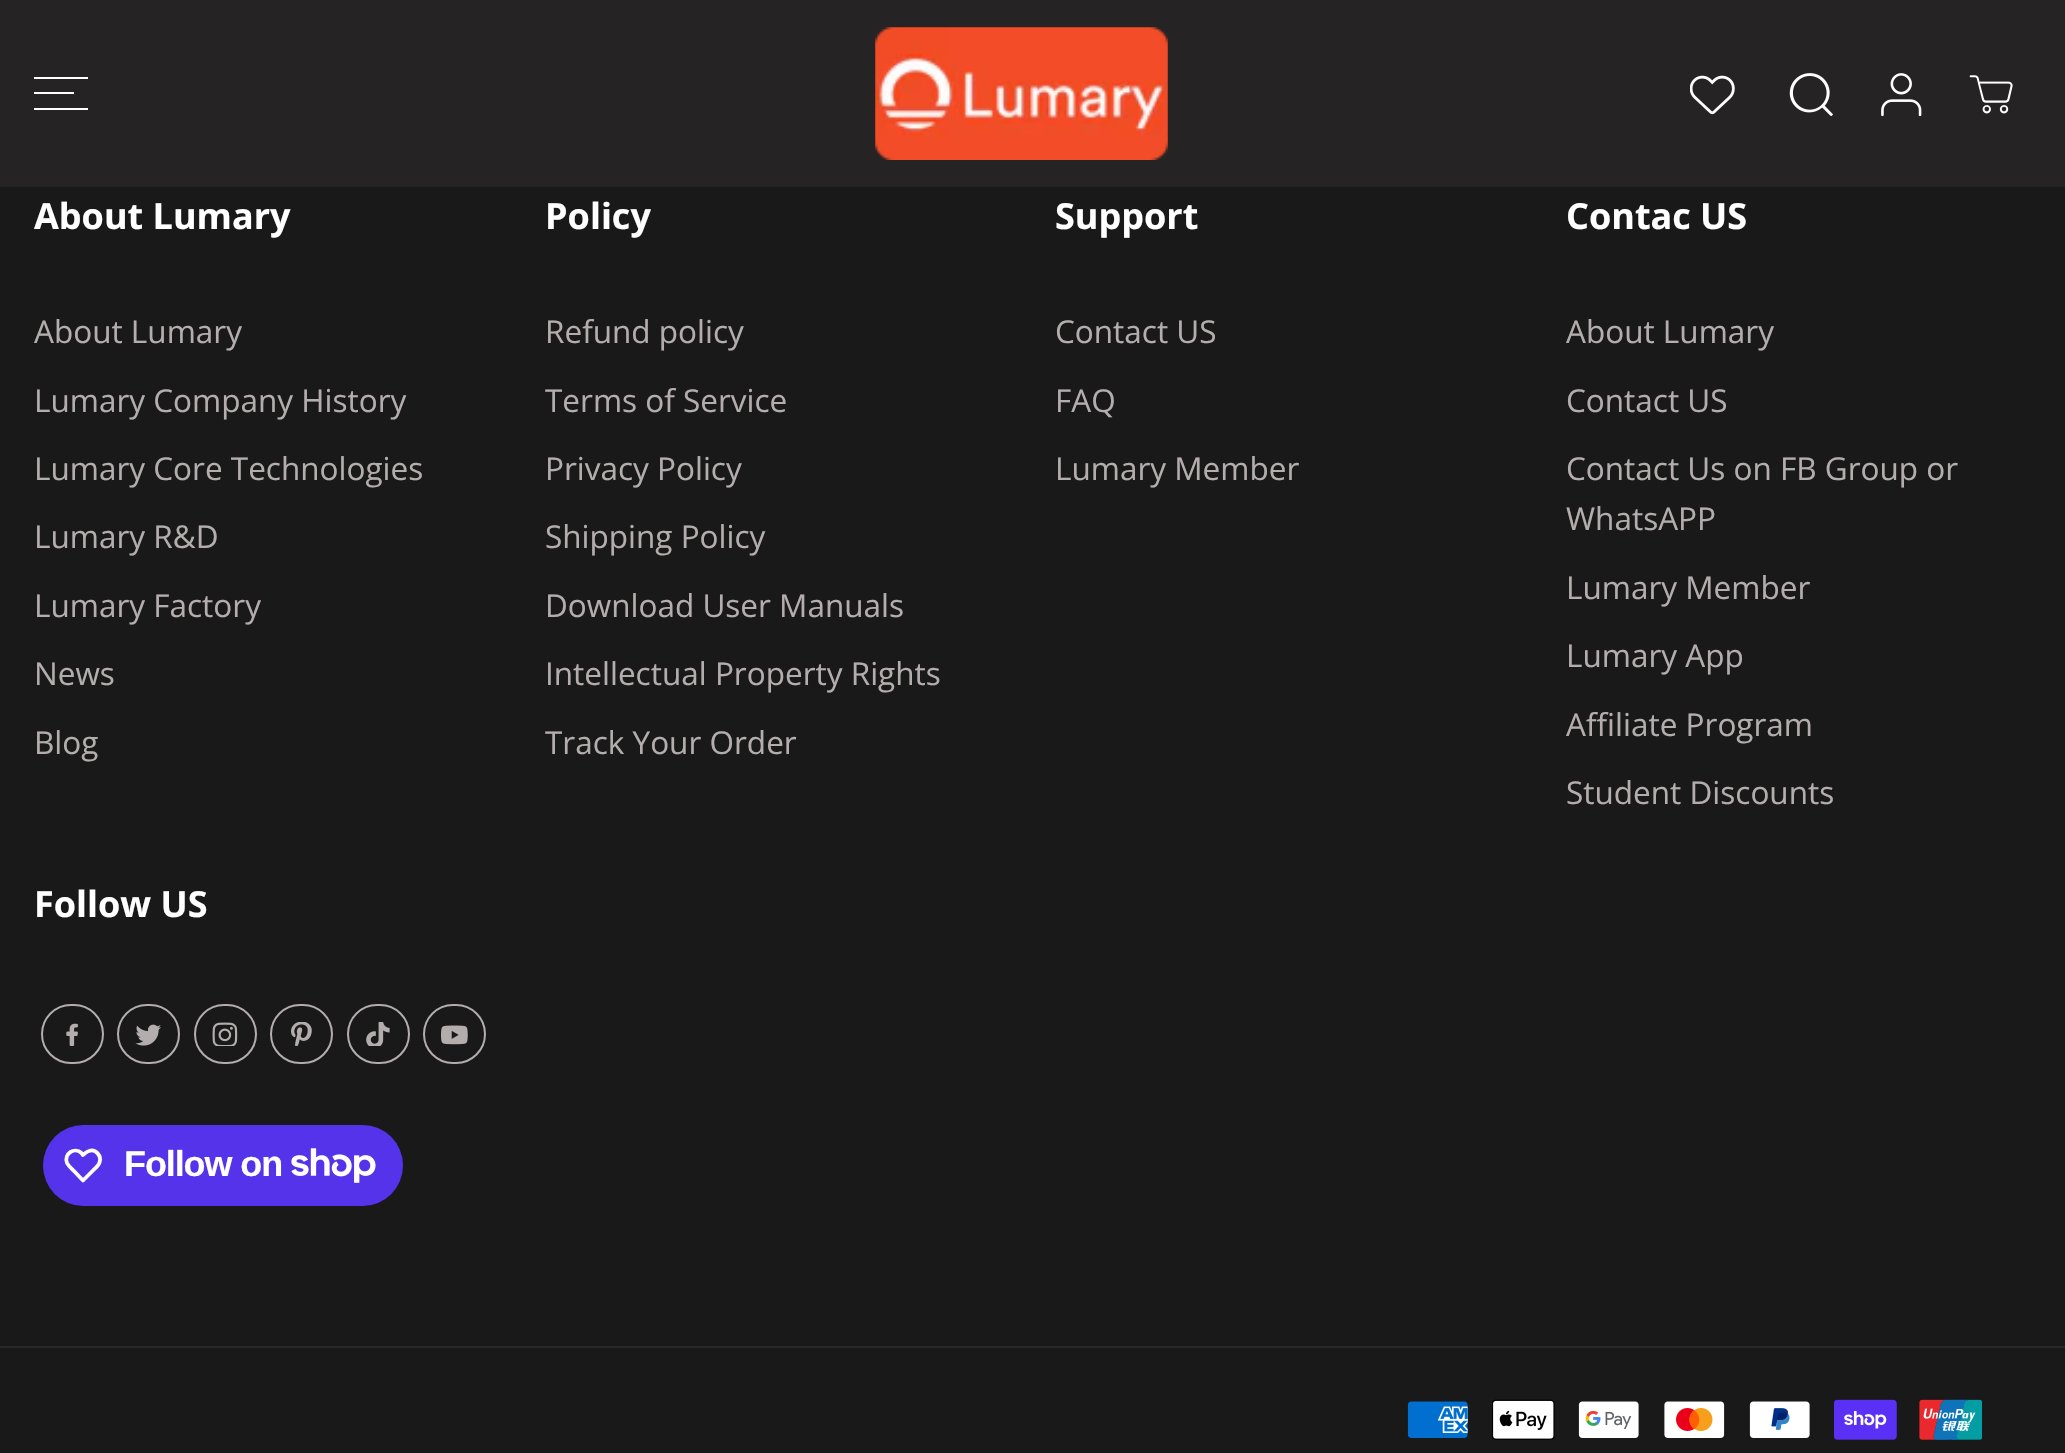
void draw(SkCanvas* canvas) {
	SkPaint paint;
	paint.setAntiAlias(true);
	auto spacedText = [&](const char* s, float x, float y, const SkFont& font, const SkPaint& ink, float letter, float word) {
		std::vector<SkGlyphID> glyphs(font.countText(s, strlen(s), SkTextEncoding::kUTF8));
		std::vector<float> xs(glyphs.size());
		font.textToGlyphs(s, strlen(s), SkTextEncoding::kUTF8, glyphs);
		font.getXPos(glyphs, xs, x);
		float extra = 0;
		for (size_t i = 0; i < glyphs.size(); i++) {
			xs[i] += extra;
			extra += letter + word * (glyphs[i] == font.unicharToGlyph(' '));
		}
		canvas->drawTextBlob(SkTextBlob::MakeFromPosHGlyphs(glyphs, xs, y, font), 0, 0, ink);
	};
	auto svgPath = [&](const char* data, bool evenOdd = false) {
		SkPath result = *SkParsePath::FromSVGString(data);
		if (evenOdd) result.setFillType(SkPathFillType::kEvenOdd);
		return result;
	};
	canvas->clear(0xff191919);
	paint.setColor(0xff252323);
	canvas->drawRect(SkRect::MakeXYWH(0, 0, 2065, 187), paint);
	paint.setColor(0xffffffff);
	canvas->drawRect(SkRect::MakeXYWH(34, 92, 40, 2), paint);
	canvas->drawRect(SkRect::MakeXYWH(34, 77, 54, 2), paint);
	canvas->drawRect(SkRect::MakeXYWH(34, 108, 54, 2), paint);
	canvas->drawImageRect(SkImages::DeferredFromEncodedData(SkData::MakeFromFileName("img1.png")), SkRect::MakeXYWH(875, 27, 293, 133), SkSamplingOptions());
	canvas->drawImageRect(SkImages::DeferredFromEncodedData(SkData::MakeFromFileName("img2.png")), SkRect::MakeXYWH(1690, 75, 45, 40), SkSamplingOptions());
	canvas->drawImageRect(SkImages::DeferredFromEncodedData(SkData::MakeFromFileName("img3.png")), SkRect::MakeXYWH(1789, 73, 44, 43), SkSamplingOptions());
	canvas->drawImageRect(SkImages::DeferredFromEncodedData(SkData::MakeFromFileName("img4.png")), SkRect::MakeXYWH(1881, 73, 41, 44), SkSamplingOptions());
	canvas->drawImageRect(SkImages::DeferredFromEncodedData(SkData::MakeFromFileName("img5.png")), SkRect::MakeXYWH(1969, 75, 44, 39), SkSamplingOptions());
	SkFont f1(fontMgr->matchFamilyStyle("Open Sans", SkFontStyle::Bold()), 36);
	f1.setSubpixel(true);
	canvas->drawString("About Lumary", 34, 229, f1, paint);
	SkFont f2(fontMgr->matchFamilyStyle("Open Sans", SkFontStyle::Normal()), 31.5);
	f2.setSubpixel(true);
	paint.setColor(0xffb3adad);
	canvas->drawString("About Lumary", 34, 343, f2, paint);
	canvas->drawString("Lumary Company History", 34, 412, f2, paint);
	canvas->drawString("Lumary Core Technologies", 34, 480, f2, paint);
	canvas->drawString("Lumary R&D", 34, 548, f2, paint);
	canvas->drawString("Lumary Factory", 34, 617, f2, paint);
	canvas->drawString("News", 34, 685, f2, paint);
	canvas->drawString("Blog", 34, 754, f2, paint);
	paint.setColor(0xffffffff);
	canvas->drawString("Policy", 545, 229, f1, paint);
	paint.setColor(0xffb3adad);
	canvas->drawString("Refund policy", 545, 343, f2, paint);
	canvas->drawString("Terms of Service", 545, 412, f2, paint);
	canvas->drawString("Privacy Policy", 545, 480, f2, paint);
	canvas->drawString("Shipping Policy", 545, 548, f2, paint);
	canvas->drawString("Download User Manuals", 545, 617, f2, paint);
	canvas->drawString("Intellectual Property Rights", 545, 685, f2, paint);
	canvas->drawString("Track Your Order", 545, 754, f2, paint);
	paint.setColor(0xffffffff);
	canvas->drawString("Support", 1055, 229, f1, paint);
	paint.setColor(0xffb3adad);
	canvas->drawString("Contact US", 1055, 343, f2, paint);
	canvas->drawString("FAQ", 1055, 412, f2, paint);
	canvas->drawString("Lumary Member", 1055, 480, f2, paint);
	paint.setColor(0xffffffff);
	canvas->drawString("Contac US", 1566, 229, f1, paint);
	paint.setColor(0xffb3adad);
	canvas->drawString("About Lumary", 1566, 343, f2, paint);
	canvas->drawString("Contact US", 1566, 412, f2, paint);
	canvas->drawString("Contact Us on FB Group or", 1566, 480, f2, paint);
	canvas->drawString("WhatsAPP", 1566, 530, f2, paint);
	canvas->drawString("Lumary Member", 1566, 599, f2, paint);
	canvas->drawString("Lumary App", 1566, 667, f2, paint);
	canvas->drawString("Affiliate Program", 1566, 736, f2, paint);
	canvas->drawString("Student Discounts", 1566, 804, f2, paint);
	paint.setColor(0xffffffff);
	canvas->drawString("Follow US", 34, 917, f1, paint);
	canvas->drawImageRect(SkImages::DeferredFromEncodedData(SkData::MakeFromFileName("img6.png")), SkRect::MakeXYWH(66, 1023, 12, 23), SkSamplingOptions());
	paint.setStroke(true);
	paint.setStrokeWidth(2);
	paint.setColor(0xffb3adad);
	canvas->drawRoundRect(SkRect::MakeXYWH(42, 1005, 61, 58), 29, 29, paint);
	canvas->drawImageRect(SkImages::DeferredFromEncodedData(SkData::MakeFromFileName("img7.png")), SkRect::MakeXYWH(135, 1024, 26, 22), SkSamplingOptions());
	canvas->drawRoundRect(SkRect::MakeXYWH(118, 1005, 61, 58), 29, 29, paint);
	canvas->drawImageRect(SkImages::DeferredFromEncodedData(SkData::MakeFromFileName("img8.png")), SkRect::MakeXYWH(212, 1022, 26, 24), SkSamplingOptions());
	canvas->drawRoundRect(SkRect::MakeXYWH(195, 1005, 61, 58), 29, 29, paint);
	canvas->drawImageRect(SkImages::DeferredFromEncodedData(SkData::MakeFromFileName("img9.png")), SkRect::MakeXYWH(291, 1022, 21, 24), SkSamplingOptions());
	canvas->drawRoundRect(SkRect::MakeXYWH(271, 1005, 61, 58), 29, 29, paint);
	canvas->drawImageRect(SkImages::DeferredFromEncodedData(SkData::MakeFromFileName("img10.png")), SkRect::MakeXYWH(366, 1022, 24, 24), SkSamplingOptions());
	canvas->drawRoundRect(SkRect::MakeXYWH(348, 1005, 61, 58), 29, 29, paint);
	canvas->drawImageRect(SkImages::DeferredFromEncodedData(SkData::MakeFromFileName("img11.png")), SkRect::MakeXYWH(441, 1025, 27, 20), SkSamplingOptions());
	canvas->drawRoundRect(SkRect::MakeXYWH(424, 1005, 61, 58), 29, 29, paint);
	paint.setStroke(false);
	paint.setColor(0xff5433eb);
	canvas->drawRoundRect(SkRect::MakeXYWH(43, 1125, 360, 81), 40.5, 40.5, paint);
	paint.setStroke(true);
	paint.setStrokeWidth(3.8);
	paint.setStrokeJoin(SkPaint::kRound_Join);
	paint.setColor(0xffffffff);
	canvas->drawPath(svgPath("M81.5 1153L83 1155C85 1153.5 86.5 1151.5 89 1151C95.5 1148.5 102 1156 99.5 1162.5C98.5 1166 95 1168.5 93 1170.5L83 1180.5L73.5 1170.5C71.5 1168.5 68.5 1166 67 1163C63.5 1154 74.5 1146.5 81.5 1153Z"), paint);
	SkFont f3(fontMgr->matchFamilyStyle("Liberation Sans", SkFontStyle::Bold()), 36);
	f3.setSubpixel(true);
	paint.setStroke(false);
	spacedText("Follow on", 124, 1176, f3, paint, -1.1, 0);
	canvas->drawImageRect(SkImages::DeferredFromEncodedData(SkData::MakeFromFileName("img12.png")), SkRect::MakeXYWH(291, 1148, 85, 35), SkSamplingOptions());
	paint.setColor(0xff282828);
	canvas->drawRect(SkRect::MakeXYWH(0, 1346, 2065, 2), paint);
	canvas->drawImageRect(SkImages::DeferredFromEncodedData(SkData::MakeFromFileName("img13.png")), SkRect::MakeXYWH(1407, 1401, 61, 37), SkSamplingOptions());
	canvas->drawImageRect(SkImages::DeferredFromEncodedData(SkData::MakeFromFileName("img14.png")), SkRect::MakeXYWH(1492, 1399, 63, 41), SkSamplingOptions());
	canvas->drawImageRect(SkImages::DeferredFromEncodedData(SkData::MakeFromFileName("img15.png")), SkRect::MakeXYWH(1578, 1401, 61, 37), SkSamplingOptions());
	canvas->drawImageRect(SkImages::DeferredFromEncodedData(SkData::MakeFromFileName("img16.png")), SkRect::MakeXYWH(1664, 1401, 61, 37), SkSamplingOptions());
	canvas->drawImageRect(SkImages::DeferredFromEncodedData(SkData::MakeFromFileName("img17.png")), SkRect::MakeXYWH(1749, 1401, 61, 37), SkSamplingOptions());
	canvas->drawImageRect(SkImages::DeferredFromEncodedData(SkData::MakeFromFileName("img18.png")), SkRect::MakeXYWH(1834, 1399, 63, 41), SkSamplingOptions());
	canvas->drawImageRect(SkImages::DeferredFromEncodedData(SkData::MakeFromFileName("img19.png")), SkRect::MakeXYWH(1919, 1399, 63, 41), SkSamplingOptions());
}
